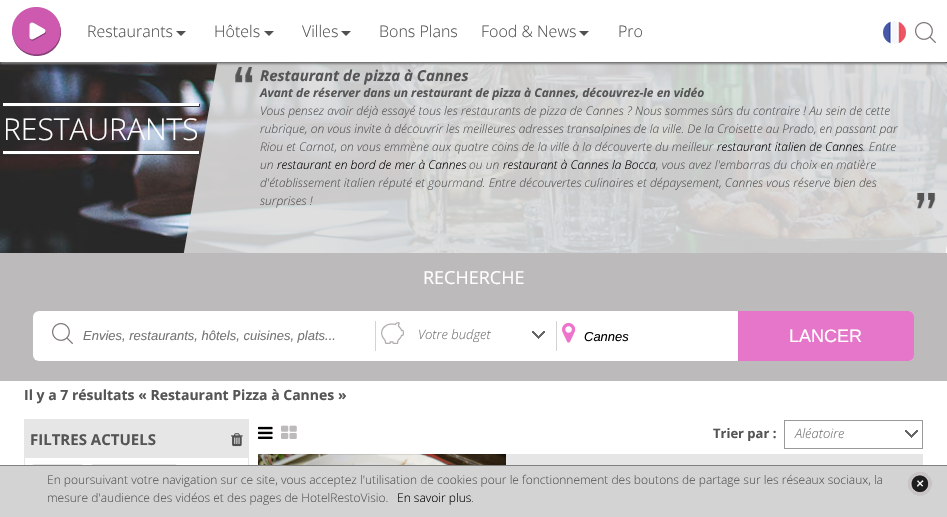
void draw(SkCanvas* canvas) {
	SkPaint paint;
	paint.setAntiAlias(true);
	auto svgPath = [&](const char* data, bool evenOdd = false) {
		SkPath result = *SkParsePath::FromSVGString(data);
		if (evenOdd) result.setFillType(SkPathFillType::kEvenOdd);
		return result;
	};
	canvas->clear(0xffffffff);
	canvas->drawImageRect(SkImages::DeferredFromEncodedData(SkData::MakeFromFileName("img1.png")), SkRect::MakeXYWH(0, 62, 947, 1), SkSamplingOptions());
	canvas->drawImageRect(SkImages::DeferredFromEncodedData(SkData::MakeFromFileName("img5.png")), SkRect::MakeXYWH(0, 63, 947, 190), SkSamplingOptions());
	paint.setColor(0xff333333);
	canvas->drawPath(svgPath("M4 106V107H200V104H199V106Z"), paint);
	paint.setColor(0xffffffff);
	canvas->drawRect(SkRect::MakeXYWH(3, 103, 196, 3), paint);
	SkFont f1(fontMgr->matchFamilyStyle("Open Sans", SkFontStyle(300, SkFontStyle::kNormal_Width, SkFontStyle::kUpright_Slant)), 30);
	f1.setSubpixel(true);
	canvas->drawString("RESTAURANTS", 3, 140, f1, paint);
	paint.setColor(0xff333333);
	canvas->drawPath(svgPath("M4 154V155H200V152H199V154Z"), paint);
	paint.setColor(0xffffffff);
	canvas->drawRect(SkRect::MakeXYWH(3, 151, 196, 3), paint);
	canvas->save();
	canvas->clipRect(SkRect::MakeXYWH(0, 63, 947, 190));
	paint.setColor(0xe6dcdcdc);
	canvas->drawPath(svgPath("M240-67L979 63L864 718L125 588Z"), paint);
	canvas->restore();
	canvas->drawImageRect(SkImages::DeferredFromEncodedData(SkData::MakeFromFileName("img6.png")), SkRect::MakeXYWH(235, 66, 18, 17), SkSamplingOptions());
	paint.setColor(0xff808080);
	paint.setMaskFilter(SkMaskFilter::MakeBlur(kNormal_SkBlurStyle, 1));
	canvas->drawRect(SkRect::MakeXYWH(0, 2, 947, 62), paint);
	paint.setMaskFilter(nullptr);
	paint.setColor(0xffffffff);
	canvas->drawRect(SkRect::MakeXYWH(0, 0, 947, 62), paint);
	canvas->drawImageRect(SkImages::DeferredFromEncodedData(SkData::MakeFromFileName("img2.png")), SkRect::MakeXYWH(12, 7, 49, 49), SkSamplingOptions());
	SkFont f2(fontMgr->matchFamilyStyle("Open Sans", SkFontStyle(300, SkFontStyle::kNormal_Width, SkFontStyle::kUpright_Slant)), 16);
	f2.setSubpixel(true);
	paint.setColor(0xff555555);
	canvas->drawString("Restaurants", 87, 37, f2, paint);
	paint.setColor(0xff505050);
	canvas->drawPath(svgPath("M176 31H186L181 36Z"), paint);
	paint.setColor(0xff555555);
	canvas->drawString("Hôtels", 214, 37, f2, paint);
	paint.setColor(0xff505050);
	canvas->drawPath(svgPath("M264 31H274L269 36Z"), paint);
	paint.setColor(0xff555555);
	canvas->drawString("Villes", 302, 37, f2, paint);
	paint.setColor(0xff505050);
	canvas->drawPath(svgPath("M341 31H351L346 36Z"), paint);
	paint.setColor(0xff555555);
	canvas->drawString("Bons Plans", 379, 37, f2, paint);
	canvas->drawString("Food & News", 481, 37, f2, paint);
	paint.setColor(0xff505050);
	canvas->drawPath(svgPath("M579 31H589L584 36Z"), paint);
	paint.setColor(0xff555555);
	canvas->drawString("Pro", 618, 37, f2, paint);
	canvas->drawImageRect(SkImages::DeferredFromEncodedData(SkData::MakeFromFileName("img3.png")), SkRect::MakeXYWH(883, 21, 23, 23), SkSamplingOptions());
	canvas->drawImageRect(SkImages::DeferredFromEncodedData(SkData::MakeFromFileName("img4.png")), SkRect::MakeXYWH(915, 22, 21, 21), SkSamplingOptions());
	SkFont f3(fontMgr->matchFamilyStyle("Open Sans", SkFontStyle::BoldItalic()), 15);
	f3.setSubpixel(true);
	canvas->drawString("Restaurant de pizza à Cannes", 260, 81, f3, paint);
	SkFont f4(fontMgr->matchFamilyStyle("Open Sans", SkFontStyle::BoldItalic()), 12);
	f4.setSubpixel(true);
	canvas->drawString("Avant de réserver dans un restaurant de pizza à Cannes, découvrez-le en vidéo", 260, 97, f4, paint);
	SkFont f5(fontMgr->matchFamilyStyle("Open Sans", SkFontStyle(300, SkFontStyle::kNormal_Width, SkFontStyle::kItalic_Slant)), 12);
	f5.setSubpixel(true);
	canvas->drawString("Vous pensez avoir déjà essayé tous les restaurants de pizza de Cannes ? Nous sommes sûrs du contraire ! Au sein de cette", 260, 115, f5, paint);
	canvas->drawString("rubrique, on vous invite à découvrir les meilleures adresses transalpines de la ville. De la Croisette au Prado, en passant par", 260, 133, f5, paint);
	canvas->drawString("Riou et Carnot, on vous emmène aux quatre coins de la ville à la découverte du meilleur", 260, 151, f5, paint);
	paint.setColor(0xff000000);
	canvas->drawString("restaurant italien de Cannes", 717, 151, f5, paint);
	paint.setColor(0xff555555);
	canvas->drawString(". Entre", 863, 151, f5, paint);
	canvas->drawString("un", 260, 169, f5, paint);
	paint.setColor(0xff000000);
	canvas->drawString("restaurant en bord de mer à Cannes", 277, 169, f5, paint);
	paint.setColor(0xff555555);
	canvas->drawString("ou un", 469, 169, f5, paint);
	paint.setColor(0xff000000);
	canvas->drawString("restaurant à Cannes la Bocca", 503, 169, f5, paint);
	paint.setColor(0xff555555);
	canvas->drawString(", vous avez l'embarras du choix en matière", 656, 169, f5, paint);
	canvas->drawString("d'établissement italien réputé et gourmand. Entre découvertes culinaires et dépaysement, Cannes vous réserve bien des", 260, 187, f5, paint);
	canvas->drawString("surprises !", 260, 205, f5, paint);
	canvas->drawImageRect(SkImages::DeferredFromEncodedData(SkData::MakeFromFileName("img7.png")), SkRect::MakeXYWH(917, 192, 19, 17), SkSamplingOptions());
	paint.setColor(0xffbcbabb);
	canvas->drawRect(SkRect::MakeXYWH(0, 253, 947, 128), paint);
	SkFont f6(fontMgr->matchFamilyStyle("Open Sans", SkFontStyle::Normal()), 18);
	f6.setSubpixel(true);
	paint.setColor(0xffffffff);
	canvas->drawString("RECHERCHE", 423, 284, f6, paint);
	canvas->drawRoundRect(SkRect::MakeXYWH(33, 311, 881, 50), 6, 6, paint);
	canvas->drawImageRect(SkImages::DeferredFromEncodedData(SkData::MakeFromFileName("img4.png")), SkRect::MakeXYWH(52, 323, 21, 21), SkSamplingOptions());
	SkFont f7(fontMgr->matchFamilyStyle("Liberation Sans", SkFontStyle::Italic()), 13);
	f7.setSubpixel(true);
	paint.setColor(0xff757575);
	canvas->drawString("Envies, restaurants, hôtels, cuisines, plats...", 83, 340, f7, paint);
	paint.setColor(0xffd3d3d3);
	canvas->drawRect(SkRect::MakeXYWH(375, 321, 1, 30), paint);
	canvas->drawImageRect(SkImages::DeferredFromEncodedData(SkData::MakeFromFileName("img8.png")), SkRect::MakeXYWH(381, 322, 23, 22), SkSamplingOptions());
	SkFont f8(fontMgr->matchFamilyStyle("Open Sans", SkFontStyle(300, SkFontStyle::kNormal_Width, SkFontStyle::kItalic_Slant)), 13);
	f8.setSubpixel(true);
	paint.setColor(0xff757575);
	canvas->drawString("Votre budget", 418, 339, f8, paint);
	canvas->drawImageRect(SkImages::DeferredFromEncodedData(SkData::MakeFromFileName("img9.png")), SkRect::MakeXYWH(532, 331, 13, 8), SkSamplingOptions());
	paint.setColor(0xffd3d3d3);
	canvas->drawRect(SkRect::MakeXYWH(556, 321, 1, 30), paint);
	canvas->drawImageRect(SkImages::DeferredFromEncodedData(SkData::MakeFromFileName("img10.png")), SkRect::MakeXYWH(562, 322, 14, 21), SkSamplingOptions());
	paint.setColor(0xff000000);
	canvas->drawString("Cannes", 584, 341, f7, paint);
	paint.setColor(0xffe576c9);
	canvas->drawPath(svgPath("M738 311H908C911.5 311 914 313.5 914 317V355C914 358.5 911.5 361 908 361H738Z"), paint);
	SkFont f9(fontMgr->matchFamilyStyle("Liberation Sans", SkFontStyle::Normal()), 18);
	f9.setSubpixel(true);
	paint.setColor(0xffffffff);
	canvas->drawString("LANCER", 789, 342, f9, paint);
	SkFont f10(fontMgr->matchFamilyStyle("Open Sans", SkFontStyle::Bold()), 14);
	f10.setSubpixel(true);
	paint.setColor(0xff555555);
	canvas->drawString("Il y a 7 résultats « Restaurant Pizza à Cannes »", 24, 400, f10, paint);
	paint.setStroke(true);
	paint.setStrokeWidth(1);
	paint.setColor(0xffe6e6e6);
	canvas->drawRect(SkRect::MakeXYWH(24.5, 419.5, 224, 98), paint);
	paint.setStroke(false);
	canvas->drawRect(SkRect::MakeXYWH(25, 420, 223, 38), paint);
	SkFont f11(fontMgr->matchFamilyStyle("Open Sans", SkFontStyle::Bold()), 15);
	f11.setSubpixel(true);
	paint.setColor(0xff555555);
	canvas->drawString("FILTRES ACTUELS", 30, 445, f11, paint);
	canvas->drawImageRect(SkImages::DeferredFromEncodedData(SkData::MakeFromFileName("img11.png")), SkRect::MakeXYWH(231, 433, 12, 14), SkSamplingOptions());
	paint.setColor(0xffe6e6e6);
	canvas->drawRoundRect(SkRect::MakeXYWH(31, 464, 53, 36), 4, 4, paint);
	canvas->drawRoundRect(SkRect::MakeXYWH(90, 464, 88, 36), 4, 4, paint);
	canvas->drawImageRect(SkImages::DeferredFromEncodedData(SkData::MakeFromFileName("img12.png")), SkRect::MakeXYWH(258, 426, 15, 13), SkSamplingOptions());
	canvas->drawImageRect(SkImages::DeferredFromEncodedData(SkData::MakeFromFileName("img13.png")), SkRect::MakeXYWH(281, 425, 16, 14), SkSamplingOptions());
	SkFont f12(fontMgr->matchFamilyStyle("Open Sans", SkFontStyle::Bold()), 13);
	f12.setSubpixel(true);
	paint.setColor(0xff555555);
	canvas->drawString("Trier par :", 713, 438, f12, paint);
	paint.setStroke(true);
	paint.setColor(0xff999999);
	canvas->drawRect(SkRect::MakeXYWH(784.5, 420.5, 138, 28), paint);
	paint.setStroke(false);
	paint.setColor(0xff757575);
	canvas->drawString("Aléatoire", 795, 438, f8, paint);
	canvas->drawImageRect(SkImages::DeferredFromEncodedData(SkData::MakeFromFileName("img9.png")), SkRect::MakeXYWH(905, 430, 13, 8), SkSamplingOptions());
	paint.setColor(0xffe6e6e6);
	canvas->drawRect(SkRect::MakeXYWH(506, 454, 417, 11), paint);
	canvas->drawImageRect(SkImages::DeferredFromEncodedData(SkData::MakeFromFileName("img14.png")), SkRect::MakeXYWH(258, 454, 248, 11), SkSamplingOptions());
	paint.setColor(0xffd3d3d3);
	canvas->drawRect(SkRect::MakeXYWH(0, 466, 947, 51), paint);
	paint.setColor(0xff808080);
	canvas->drawRect(SkRect::MakeXYWH(0, 465, 947, 1), paint);
	SkFont f13(fontMgr->matchFamilyStyle("Open Sans", SkFontStyle(300, SkFontStyle::kNormal_Width, SkFontStyle::kUpright_Slant)), 12);
	f13.setSubpixel(true);
	paint.setColor(0xff555555);
	canvas->drawString("En poursuivant votre navigation sur ce site, vous acceptez l'utilisation de cookies pour le fonctionnement des boutons de partage sur les réseaux sociaux, la", 47, 484, f13, paint);
	canvas->drawString("mesure d'audience des vidéos et des pages de HotelRestoVisio.", 47, 502, f13, paint);
	paint.setColor(0xff000000);
	canvas->drawString("En savoir plus", 397, 502, f13, paint);
	paint.setColor(0xff555555);
	canvas->drawString(".", 471, 502, f13, paint);
	canvas->drawImageRect(SkImages::DeferredFromEncodedData(SkData::MakeFromFileName("img15.png")), SkRect::MakeXYWH(908, 472, 24, 24), SkSamplingOptions());
}
